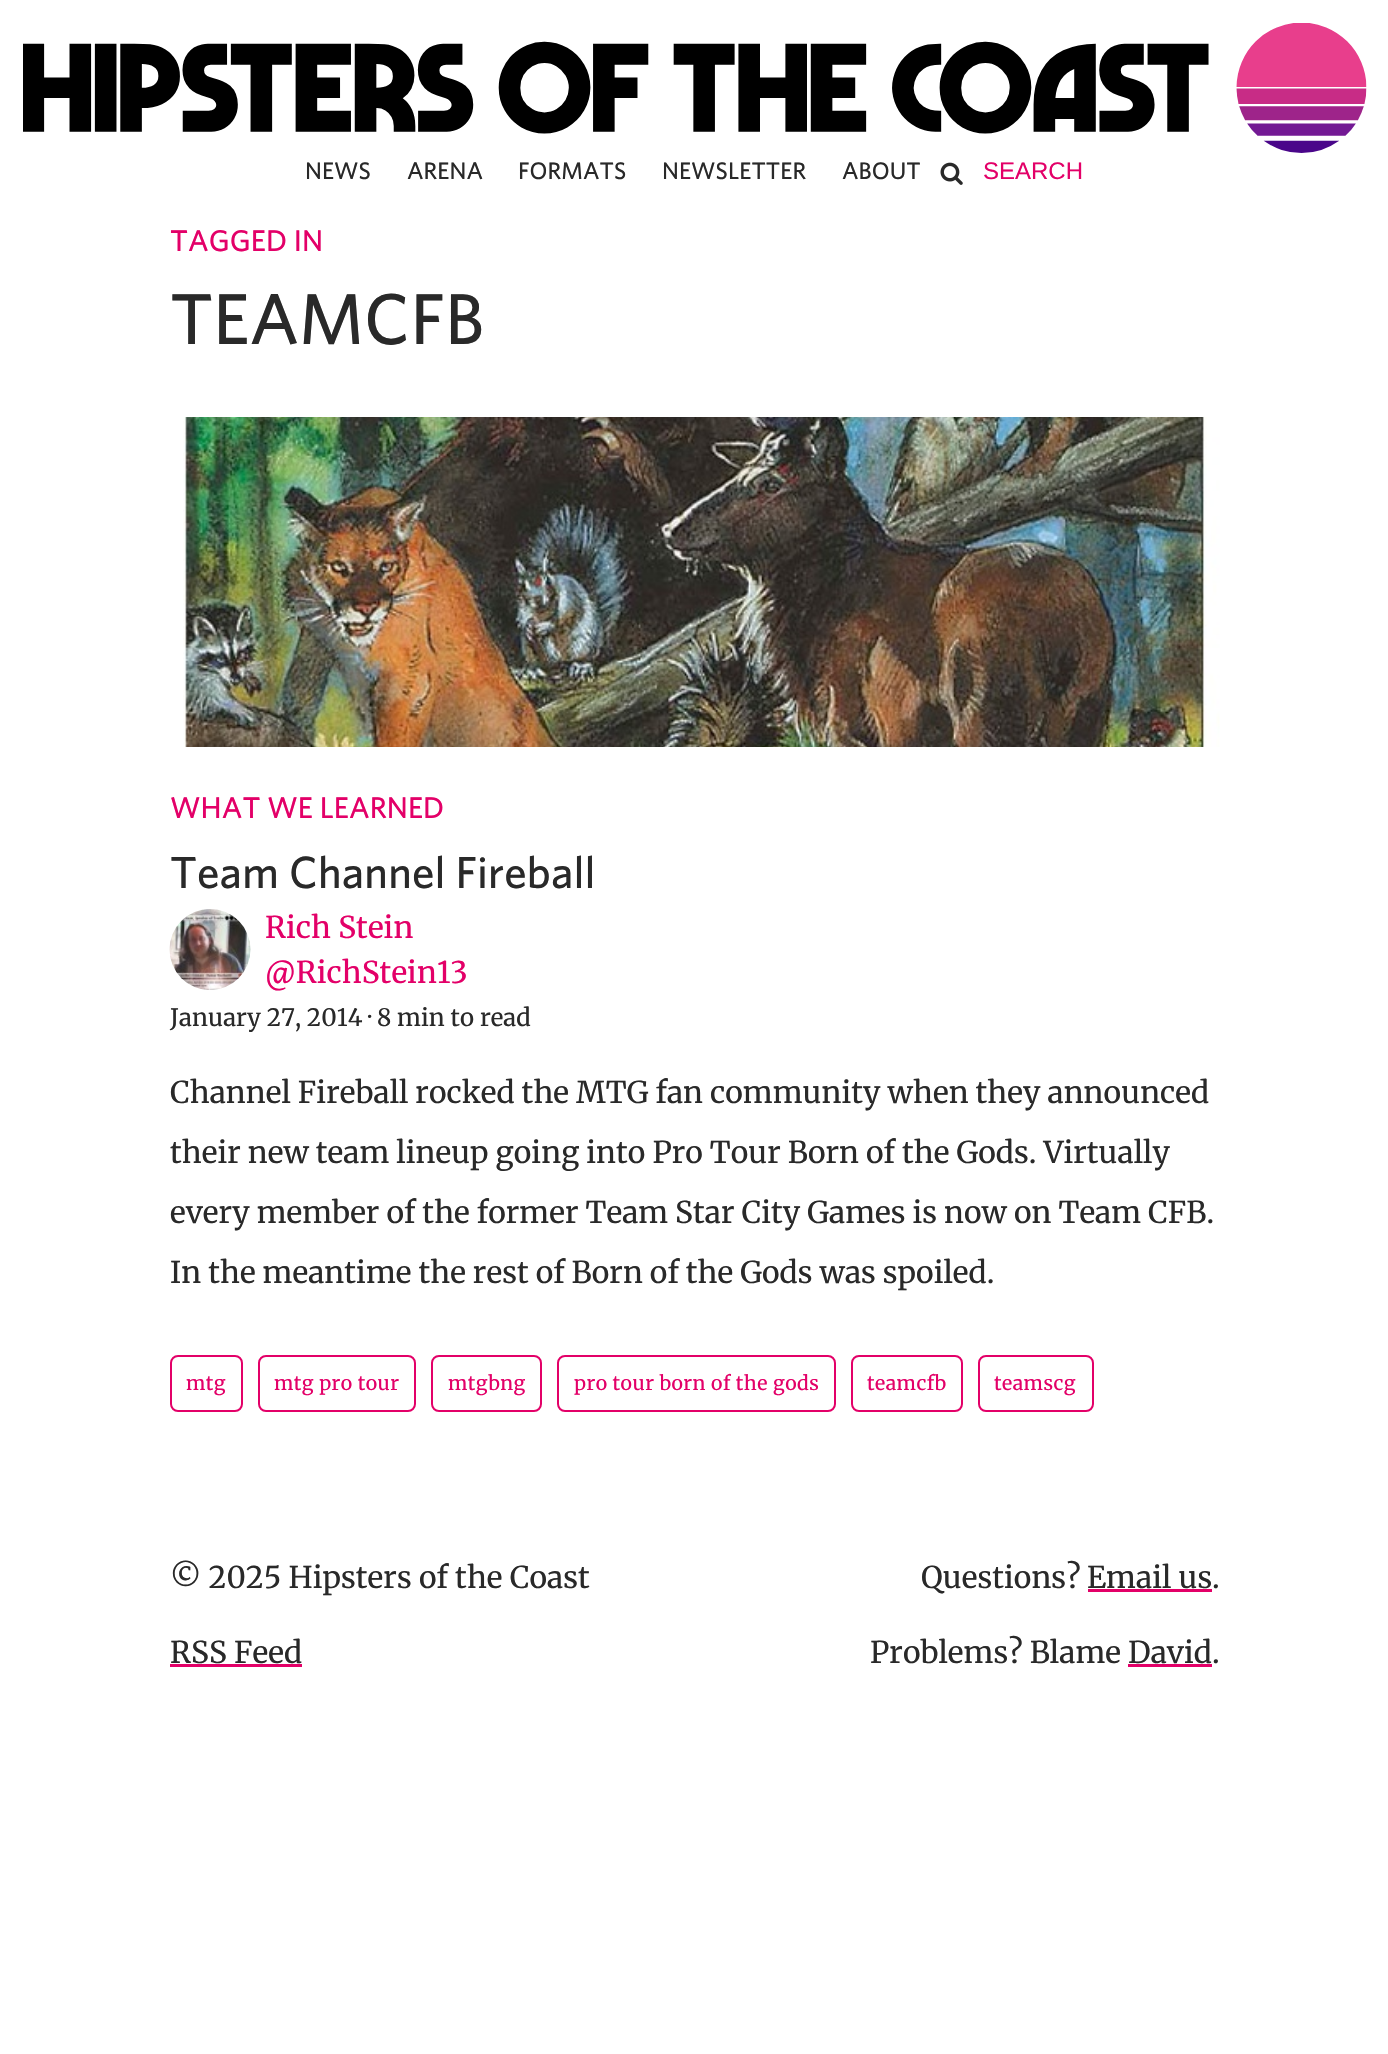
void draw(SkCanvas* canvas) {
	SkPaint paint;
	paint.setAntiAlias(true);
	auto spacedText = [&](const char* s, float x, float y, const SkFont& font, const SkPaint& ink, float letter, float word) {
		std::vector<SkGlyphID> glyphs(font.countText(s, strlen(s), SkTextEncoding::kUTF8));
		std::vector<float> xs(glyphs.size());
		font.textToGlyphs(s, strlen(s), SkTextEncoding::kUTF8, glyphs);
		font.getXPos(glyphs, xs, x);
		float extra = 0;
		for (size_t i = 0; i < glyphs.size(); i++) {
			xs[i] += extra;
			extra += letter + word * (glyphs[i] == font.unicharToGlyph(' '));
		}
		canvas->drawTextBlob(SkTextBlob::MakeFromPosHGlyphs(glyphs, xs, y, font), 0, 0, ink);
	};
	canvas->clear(0xffffffff);
	canvas->drawImageRect(SkImages::DeferredFromEncodedData(SkData::MakeFromFileName("img1.png")), SkRect::MakeXYWH(23, 23, 1344, 130), SkSamplingOptions());
	SkFont f1(fontMgr->matchFamilyStyle("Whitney", SkFontStyle(500, SkFontStyle::kNormal_Width, SkFontStyle::kUpright_Slant)), 24);
	f1.setSubpixel(true);
	paint.setColor(0xff292929);
	spacedText("NEWS", 305, 179, f1, paint, 0.08, 0);
	spacedText("ARENA", 407, 179, f1, paint, 0.08, 0);
	spacedText("FORMATS", 518, 179, f1, paint, 0.08, 0);
	spacedText("NEWSLETTER", 662, 179, f1, paint, 0.08, 0);
	spacedText("ABOUT", 842, 179, f1, paint, 0.08, 0);
	canvas->drawImageRect(SkImages::DeferredFromEncodedData(SkData::MakeFromFileName("img2.png")), SkRect::MakeXYWH(940, 162, 23, 23), SkSamplingOptions());
	SkFont f2(fontMgr->matchFamilyStyle("Liberation Sans", SkFontStyle::Normal()), 24);
	f2.setSubpixel(true);
	paint.setColor(0xffe30068);
	canvas->drawString("SEARCH", 983, 179, f2, paint);
	SkFont f3(fontMgr->matchFamilyStyle("Whitney", SkFontStyle(500, SkFontStyle::kNormal_Width, SkFontStyle::kUpright_Slant)), 30);
	f3.setSubpixel(true);
	spacedText("TAGGED IN", 170, 251, f3, paint, 0.08, 0);
	SkFont f4(fontMgr->matchFamilyStyle("Whitney", SkFontStyle(500, SkFontStyle::kNormal_Width, SkFontStyle::kUpright_Slant)), 72);
	f4.setSubpixel(true);
	paint.setColor(0xff292929);
	spacedText("TEAMCFB", 170, 344, f4, paint, 0.08, 0);
	canvas->drawImageRect(SkImages::DeferredFromEncodedData(SkData::MakeFromFileName("img3.png")), SkRect::MakeXYWH(183, 417, 1037, 330), SkSamplingOptions());
	paint.setColor(0xffe30068);
	spacedText("WHAT WE LEARNED", 170, 818, f3, paint, 0.08, 0);
	SkFont f5(fontMgr->matchFamilyStyle("Whitney", SkFontStyle(500, SkFontStyle::kNormal_Width, SkFontStyle::kUpright_Slant)), 45);
	f5.setSubpixel(true);
	paint.setColor(0xff292929);
	spacedText("Team Channel Fireball", 170, 888, f5, paint, 0.08, 0);
	canvas->drawImageRect(SkImages::DeferredFromEncodedData(SkData::MakeFromFileName("img4.png")), SkRect::MakeXYWH(169, 909, 82, 81), SkSamplingOptions());
	SkFont f6(fontMgr->matchFamilyStyle("Merriweather", SkFontStyle::Normal()), 30);
	f6.setSubpixel(true);
	paint.setColor(0xffe30068);
	spacedText("Rich Stein", 265, 938, f6, paint, 0.08, 0);
	spacedText("@RichStein13", 265, 983, f6, paint, 0.08, 0);
	SkFont f7(fontMgr->matchFamilyStyle("Merriweather", SkFontStyle::Normal()), 24);
	f7.setSubpixel(true);
	paint.setColor(0xff292929);
	spacedText("January 27, 2014 · 8 min to read", 170, 1026, f7, paint, 0.08, 0);
	spacedText("Channel Fireball rocked the MTG fan community when they announced", 170, 1103, f6, paint, 0.08, -0.25);
	spacedText("their new team lineup going into Pro Tour Born of the Gods. Virtually", 170, 1163, f6, paint, 0.08, -0.25);
	spacedText("every member of the former Team Star City Games is now on Team CFB.", 170, 1223, f6, paint, 0.08, -0.25);
	spacedText("In the meantime the rest of Born of the Gods was spoiled.", 170, 1283, f6, paint, 0.08, -0.25);
	paint.setStroke(true);
	paint.setStrokeWidth(2);
	paint.setColor(0xffe30068);
	canvas->drawRoundRect(SkRect::MakeXYWH(171, 1356, 71, 55), 7, 7, paint);
	SkFont f8(fontMgr->matchFamilyStyle("Merriweather", SkFontStyle::Normal()), 19.5);
	f8.setSubpixel(true);
	paint.setStroke(false);
	spacedText("mtg", 186, 1390, f8, paint, 0.45, 0);
	paint.setStroke(true);
	canvas->drawRoundRect(SkRect::MakeXYWH(259, 1356, 156, 55), 7, 7, paint);
	paint.setStroke(false);
	spacedText("mtg pro tour", 274, 1390, f8, paint, 0.45, 0);
	paint.setStroke(true);
	canvas->drawRoundRect(SkRect::MakeXYWH(432, 1356, 109, 55), 7, 7, paint);
	paint.setStroke(false);
	spacedText("mtgbng", 448, 1390, f8, paint, 0.45, 0);
	paint.setStroke(true);
	canvas->drawRoundRect(SkRect::MakeXYWH(558, 1356, 277, 55), 7, 7, paint);
	paint.setStroke(false);
	spacedText("pro tour born of the gods", 574, 1390, f8, paint, 0.45, 0);
	paint.setStroke(true);
	canvas->drawRoundRect(SkRect::MakeXYWH(852, 1356, 110, 55), 7, 7, paint);
	paint.setStroke(false);
	spacedText("teamcfb", 867, 1390, f8, paint, 0.45, 0);
	paint.setStroke(true);
	canvas->drawRoundRect(SkRect::MakeXYWH(979, 1356, 114, 55), 7, 7, paint);
	paint.setStroke(false);
	spacedText("teamscg", 994, 1390, f8, paint, 0.45, 0);
	paint.setColor(0xff292929);
	spacedText("© 2025 Hipsters of the Coast", 170, 1588, f6, paint, 0.08, 0);
	spacedText("RSS Feed", 170, 1663, f6, paint, 0.08, 0);
	paint.setColor(0xffe30068);
	canvas->drawRect(SkRect::MakeXYWH(170, 1664, 132, 3), paint);
	paint.setColor(0xff292929);
	spacedText("Questions?", 921, 1588, f6, paint, 0.08, 0);
	spacedText("Email us", 1087, 1588, f6, paint, 0.08, 0);
	paint.setColor(0xffe30068);
	canvas->drawRect(SkRect::MakeXYWH(1088, 1589, 124, 3), paint);
	paint.setColor(0xff292929);
	spacedText(".", 1212, 1588, f6, paint, 0.08, 0);
	spacedText("Problems? Blame", 870, 1663, f6, paint, 0.08, -0.25);
	spacedText("David.", 1128, 1663, f6, paint, 0.08, 0);
	paint.setColor(0xffe30068);
	canvas->drawRect(SkRect::MakeXYWH(1128, 1664, 84, 3), paint);
}
